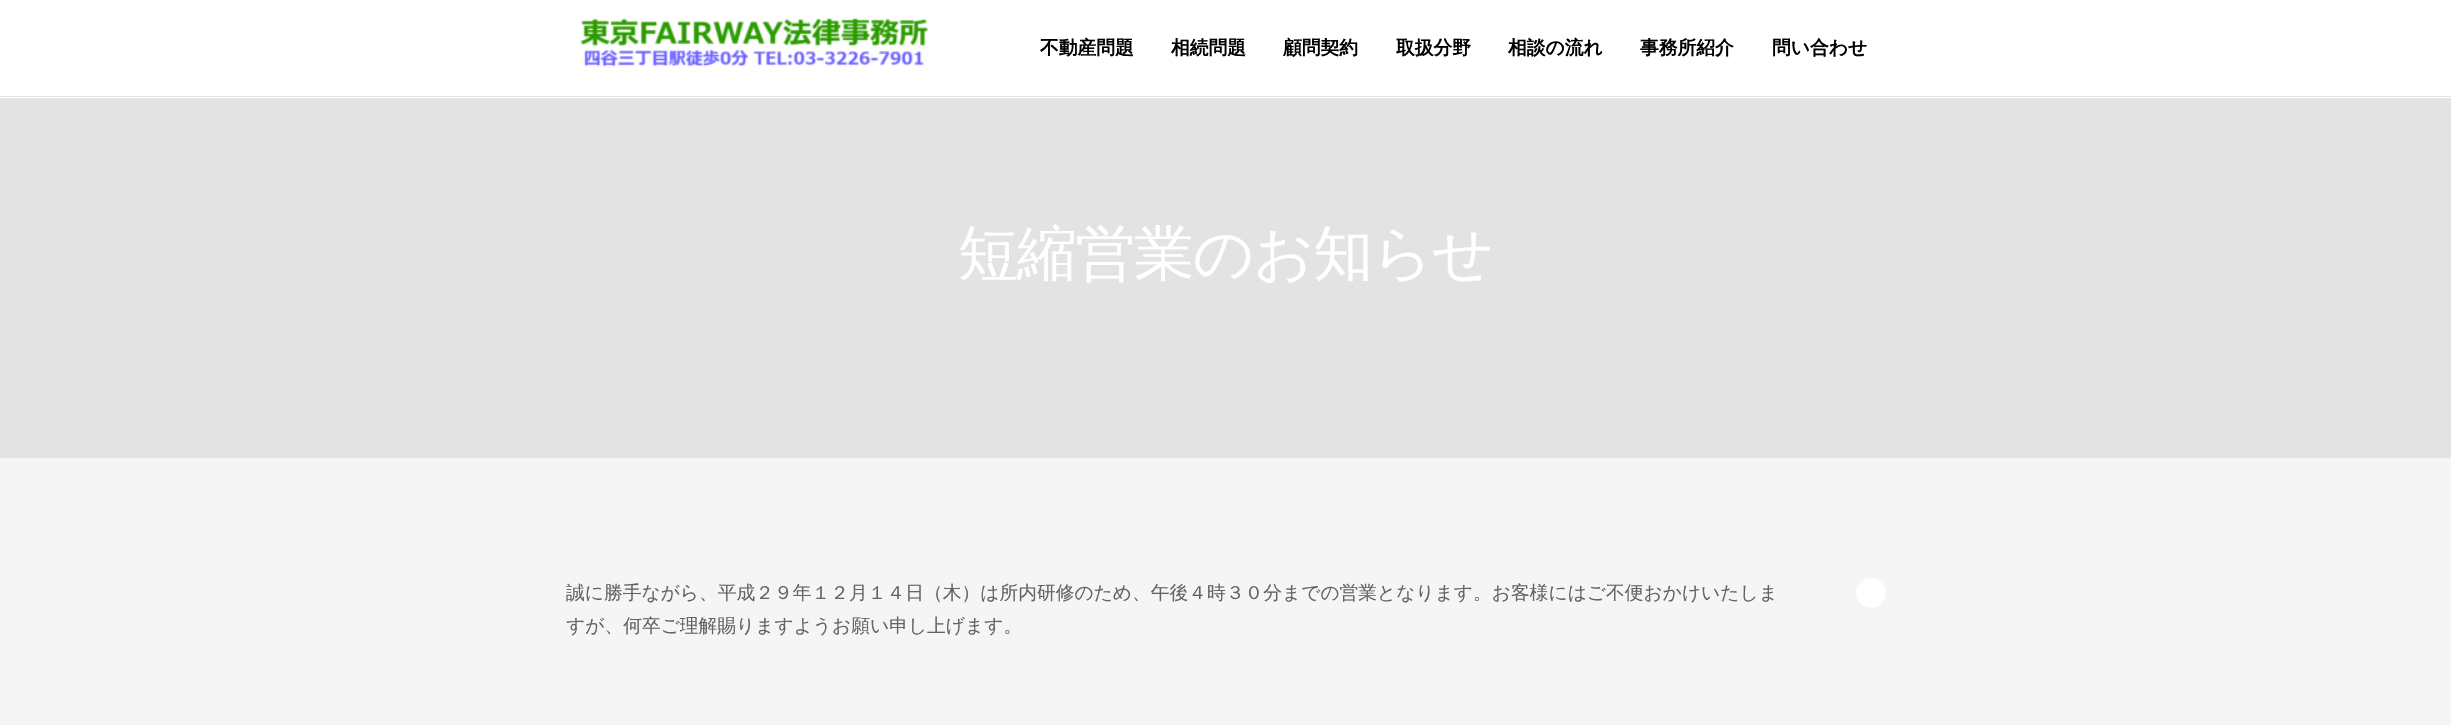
void draw(SkCanvas* canvas) {
	SkPaint paint;
	paint.setAntiAlias(true);
	auto spacedText = [&](const char* s, float x, float y, const SkFont& font, const SkPaint& ink, float letter, float word) {
		std::vector<SkGlyphID> glyphs(font.countText(s, strlen(s), SkTextEncoding::kUTF8));
		std::vector<float> xs(glyphs.size());
		font.textToGlyphs(s, strlen(s), SkTextEncoding::kUTF8, glyphs);
		font.getXPos(glyphs, xs, x);
		float extra = 0;
		for (size_t i = 0; i < glyphs.size(); i++) {
			xs[i] += extra;
			extra += letter + word * (glyphs[i] == font.unicharToGlyph(' '));
		}
		canvas->drawTextBlob(SkTextBlob::MakeFromPosHGlyphs(glyphs, xs, y, font), 0, 0, ink);
	};
	canvas->clear(0xffffffff);
	paint.setColor(0xffe3e3e3);
	canvas->drawRect(SkRect::MakeXYWH(0, 96, 2451, 1), paint);
	canvas->drawImageRect(SkImages::DeferredFromEncodedData(SkData::MakeFromFileName("img1.png")), SkRect::MakeXYWH(580, 17, 348, 50), SkSamplingOptions());
	SkFont f1(fontMgr->matchFamilyStyle("WenQuanYi Zen Hei", SkFontStyle::Bold()), 18.75);
	f1.setSubpixel(true);
	paint.setColor(0xff000000);
	canvas->drawString("不動産問題", 1040, 54, f1, paint);
	canvas->drawString("相続問題", 1171, 54, f1, paint);
	canvas->drawString("顧問契約", 1283, 54, f1, paint);
	canvas->drawString("取扱分野", 1396, 54, f1, paint);
	canvas->drawString("相談の流れ", 1508, 54, f1, paint);
	canvas->drawString("事務所紹介", 1640, 54, f1, paint);
	canvas->drawString("問い合わせ", 1772, 54, f1, paint);
	paint.setColor(0xffe3e3e3);
	canvas->drawRect(SkRect::MakeXYWH(0, 98, 2451, 360), paint);
	SkFont f2(fontMgr->matchFamilyStyle("WenQuanYi Zen Hei", SkFontStyle(500, SkFontStyle::kNormal_Width, SkFontStyle::kUpright_Slant)), 60);
	f2.setSubpixel(true);
	paint.setColor(0xffffffff);
	spacedText("短縮営業のお知らせ", 958, 274, f2, paint, -1.25, 0);
	paint.setColor(0xfff5f5f5);
	canvas->drawRect(SkRect::MakeXYWH(0, 458, 2451, 267), paint);
	SkFont f3(fontMgr->matchFamilyStyle("WenQuanYi Zen Hei", SkFontStyle(500, SkFontStyle::kNormal_Width, SkFontStyle::kUpright_Slant)), 18.75);
	f3.setSubpixel(true);
	paint.setColor(0xff636363);
	canvas->drawString("誠に勝手ながら、平成２９年１２月１４日（木）は所内研修のため、午後４時３０分までの営業となります。お客様にはご不便おかけいたしま", 566, 599, f3, paint);
	canvas->drawString("すが、何卒ご理解賜りますようお願い申し上げます。", 566, 632, f3, paint);
	paint.setColor(0xffffffff);
	canvas->drawCircle(1871, 593, 15, paint);
}
